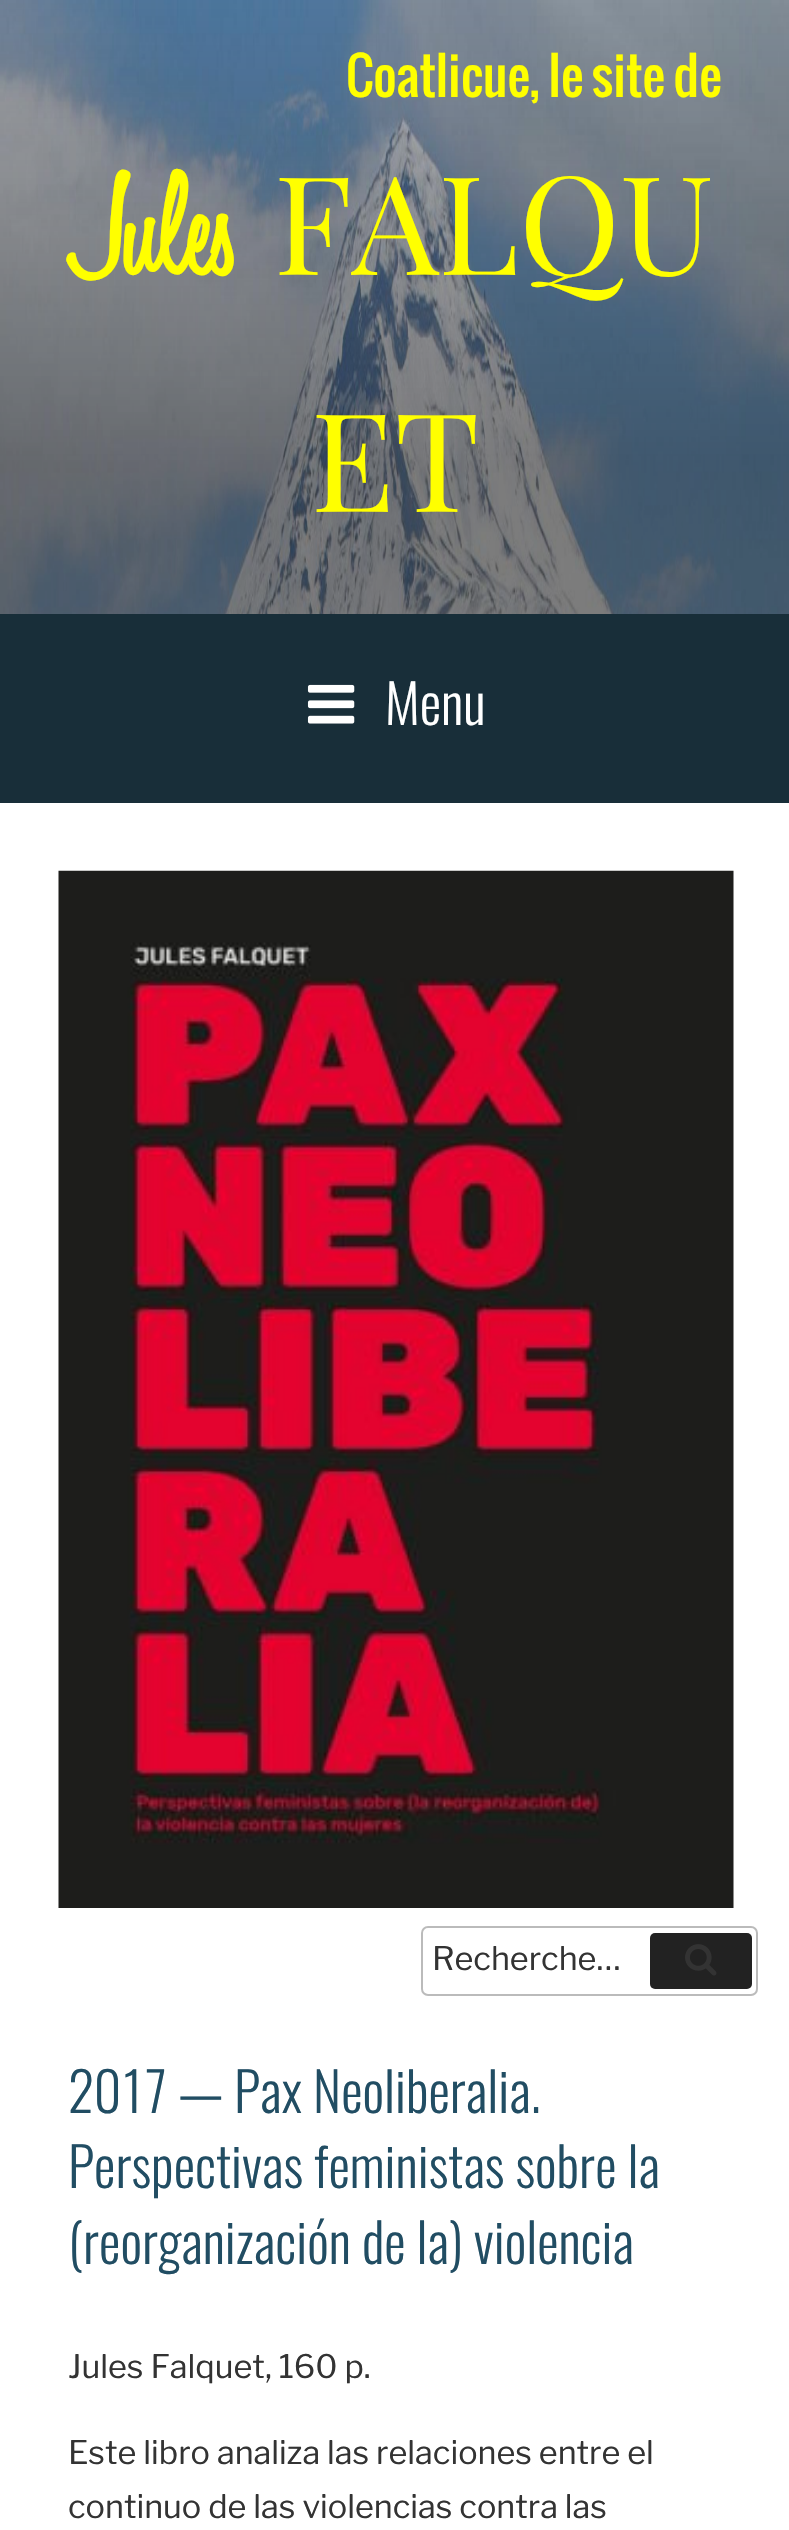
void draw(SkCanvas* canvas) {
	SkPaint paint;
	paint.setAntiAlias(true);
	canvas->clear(0xffffffff);
	canvas->drawImageRect(SkImages::DeferredFromEncodedData(SkData::MakeFromFileName("img1.png")), SkRect::MakeXYWH(0, 0, 789, 614), SkSamplingOptions());
	SkFont f1(fontMgr->matchFamilyStyle("Oswald", SkFontStyle::Normal()), 50.5);
	f1.setSubpixel(true);
	paint.setColor(0xffffff00);
	canvas->drawString("Coatlicue, le site de", 346, 97, f1, paint);
	SkFont f2(fontMgr->matchFamilyStyle("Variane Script", SkFontStyle::Normal()), 137);
	f2.setSubpixel(true);
	canvas->drawString("Jules", 76, 275, f2, paint);
	SkFont f3(fontMgr->matchFamilyStyle("Playfair Display", SkFontStyle::Normal()), 137);
	f3.setSubpixel(true);
	canvas->drawString("FALQU", 274, 275, f3, paint);
	canvas->drawString("ET", 311, 512, f3, paint);
	paint.setColor(0xff182e39);
	canvas->drawRect(SkRect::MakeXYWH(0, 614, 789, 189), paint);
	canvas->drawImageRect(SkImages::DeferredFromEncodedData(SkData::MakeFromFileName("img2.png")), SkRect::MakeXYWH(307, 684, 48, 40), SkSamplingOptions());
	SkFont f4(fontMgr->matchFamilyStyle("Oswald", SkFontStyle(300, SkFontStyle::kNormal_Width, SkFontStyle::kUpright_Slant)), 54);
	f4.setSubpixel(true);
	paint.setColor(0xffffffff);
	canvas->drawString("Menu", 385, 725, f4, paint);
	canvas->drawImageRect(SkImages::DeferredFromEncodedData(SkData::MakeFromFileName("img3.png")), SkRect::MakeXYWH(58, 870, 676, 1038), SkSamplingOptions());
	paint.setStroke(true);
	paint.setStrokeWidth(2);
	paint.setColor(0xffbbbbbb);
	canvas->drawRoundRect(SkRect::MakeXYWH(422, 1927, 335, 68), 6, 6, paint);
	SkFont f5(fontMgr->matchFamilyStyle("Libre Franklin", SkFontStyle(100, SkFontStyle::kNormal_Width, SkFontStyle::kUpright_Slant)), 32.4);
	f5.setSubpixel(true);
	paint.setStroke(false);
	paint.setColor(0xff333333);
	canvas->drawString("Recherche…", 432, 1970, f5, paint);
	paint.setColor(0xff222222);
	canvas->drawRoundRect(SkRect::MakeXYWH(650, 1933, 102, 56), 5, 5, paint);
	canvas->drawImageRect(SkImages::DeferredFromEncodedData(SkData::MakeFromFileName("img4.png")), SkRect::MakeXYWH(685, 1944, 32, 32), SkSamplingOptions());
	paint.setColor(0xff214d63);
	canvas->drawString("2017 — Pax Neoliberalia.", 68, 2113, f4, paint);
	canvas->drawString("Perspectivas feministas sobre la", 68, 2188, f4, paint);
	canvas->drawString("(reorganización de la) violencia", 68, 2264, f4, paint);
	paint.setColor(0xff333333);
	canvas->drawString("Jules Falquet, 160 p.", 68, 2378, f5, paint);
	canvas->drawString("Este libro analiza las relaciones entre el", 68, 2464, f5, paint);
	canvas->drawString("continuo de las violencias contra las", 68, 2518, f5, paint);
}
